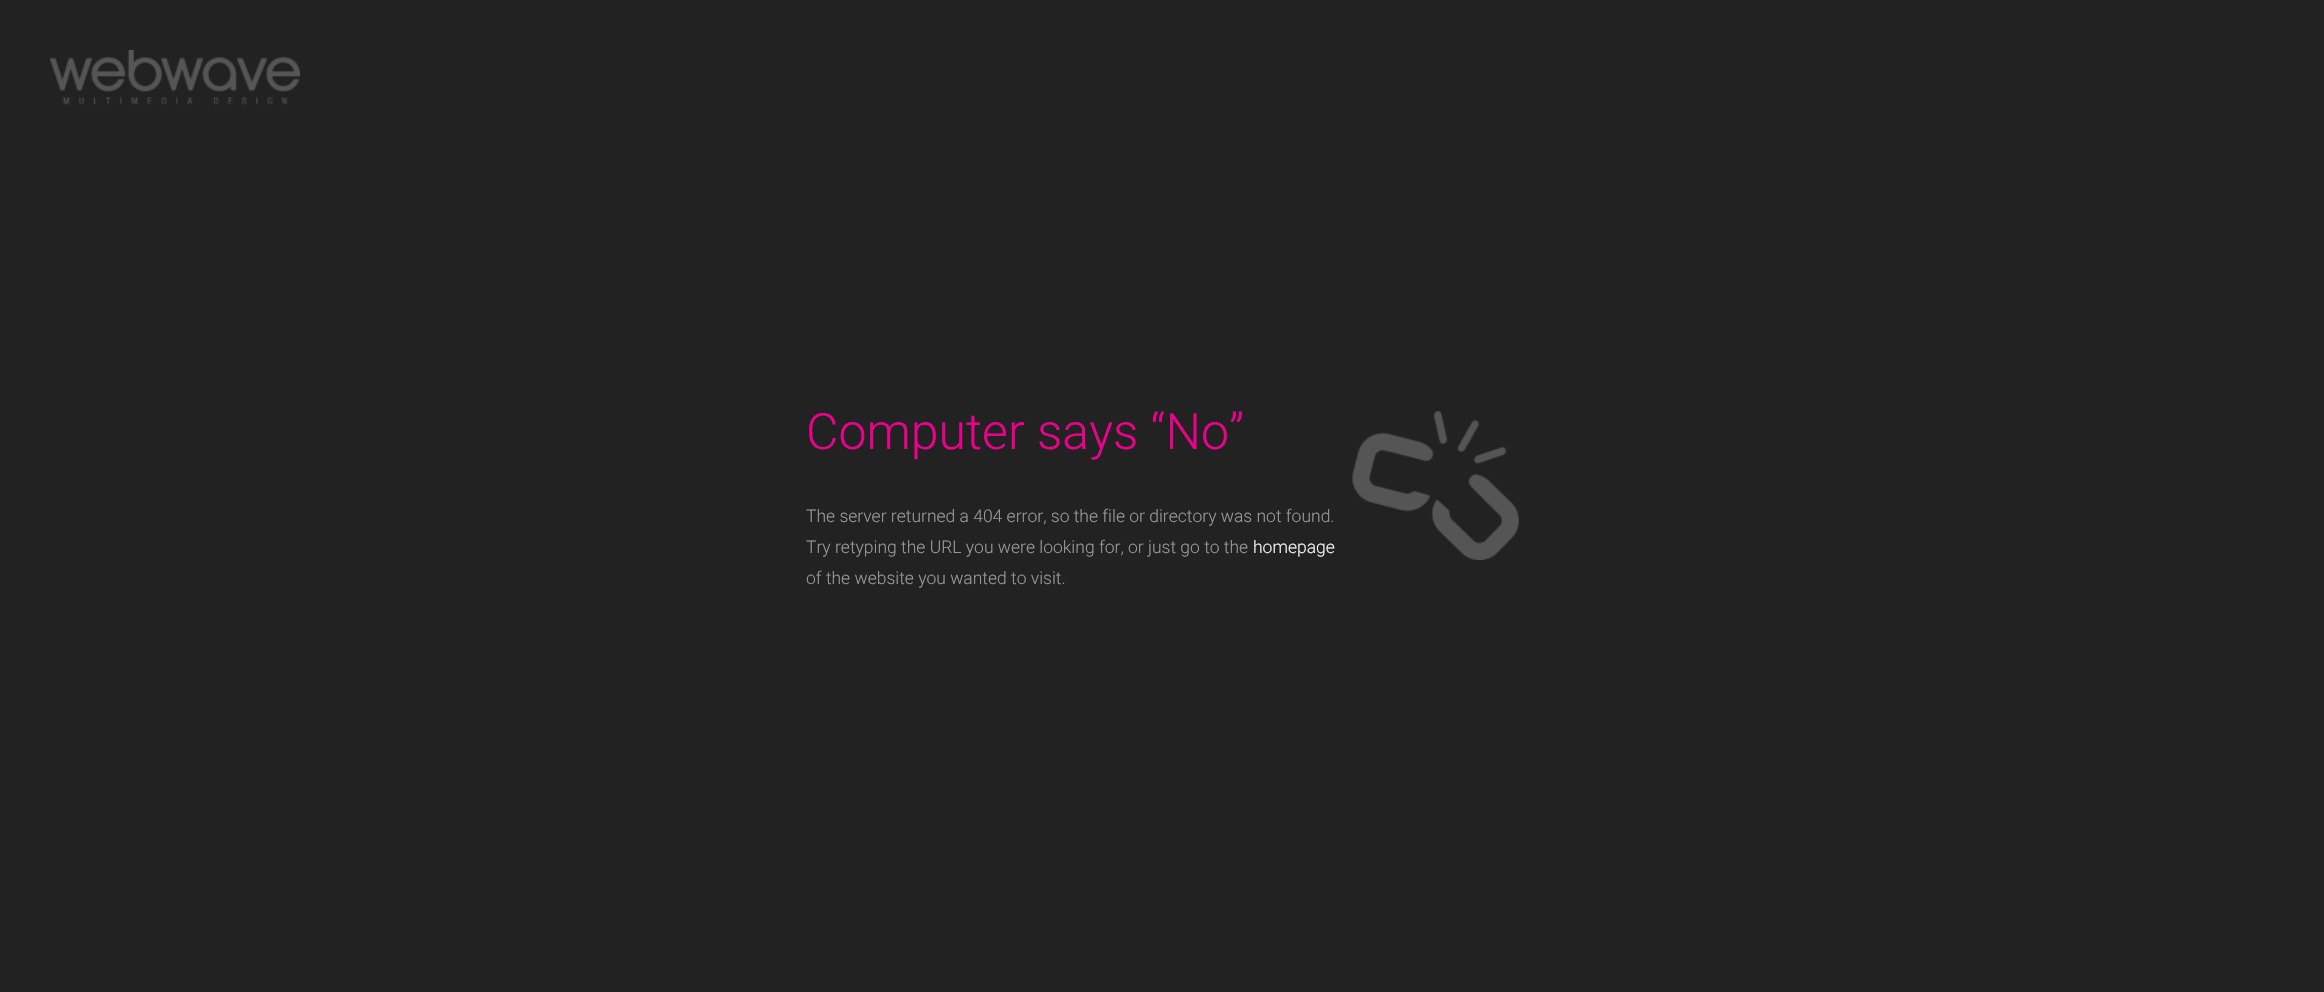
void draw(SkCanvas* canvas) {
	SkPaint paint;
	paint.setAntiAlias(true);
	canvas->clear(0xff222222);
	canvas->drawImageRect(SkImages::DeferredFromEncodedData(SkData::MakeFromFileName("img1.png")), SkRect::MakeXYWH(50, 50, 250, 55), SkSamplingOptions());
	canvas->drawImageRect(SkImages::DeferredFromEncodedData(SkData::MakeFromFileName("img2.png")), SkRect::MakeXYWH(1352, 411, 167, 149), SkSamplingOptions());
	SkFont f1(fontMgr->matchFamilyStyle("Roboto", SkFontStyle(300, SkFontStyle::kNormal_Width, SkFontStyle::kUpright_Slant)), 50);
	f1.setSubpixel(true);
	paint.setColor(0xffec008c);
	canvas->drawString("Computer says “No”", 806, 449, f1, paint);
	SkFont f2(fontMgr->matchFamilyStyle("Roboto", SkFontStyle(300, SkFontStyle::kNormal_Width, SkFontStyle::kUpright_Slant)), 17.5);
	f2.setSubpixel(true);
	paint.setColor(0xff999999);
	canvas->drawString("The server returned a 404 error, so the file or directory was not found.", 806, 522, f2, paint);
	canvas->drawString("Try retyping the URL you were looking for, or just go to the", 806, 553, f2, paint);
	paint.setColor(0xfff6f6f6);
	canvas->drawString("homepage", 1253, 553, f2, paint);
	paint.setColor(0xff999999);
	canvas->drawString("of the website you wanted to visit.", 806, 584, f2, paint);
}
